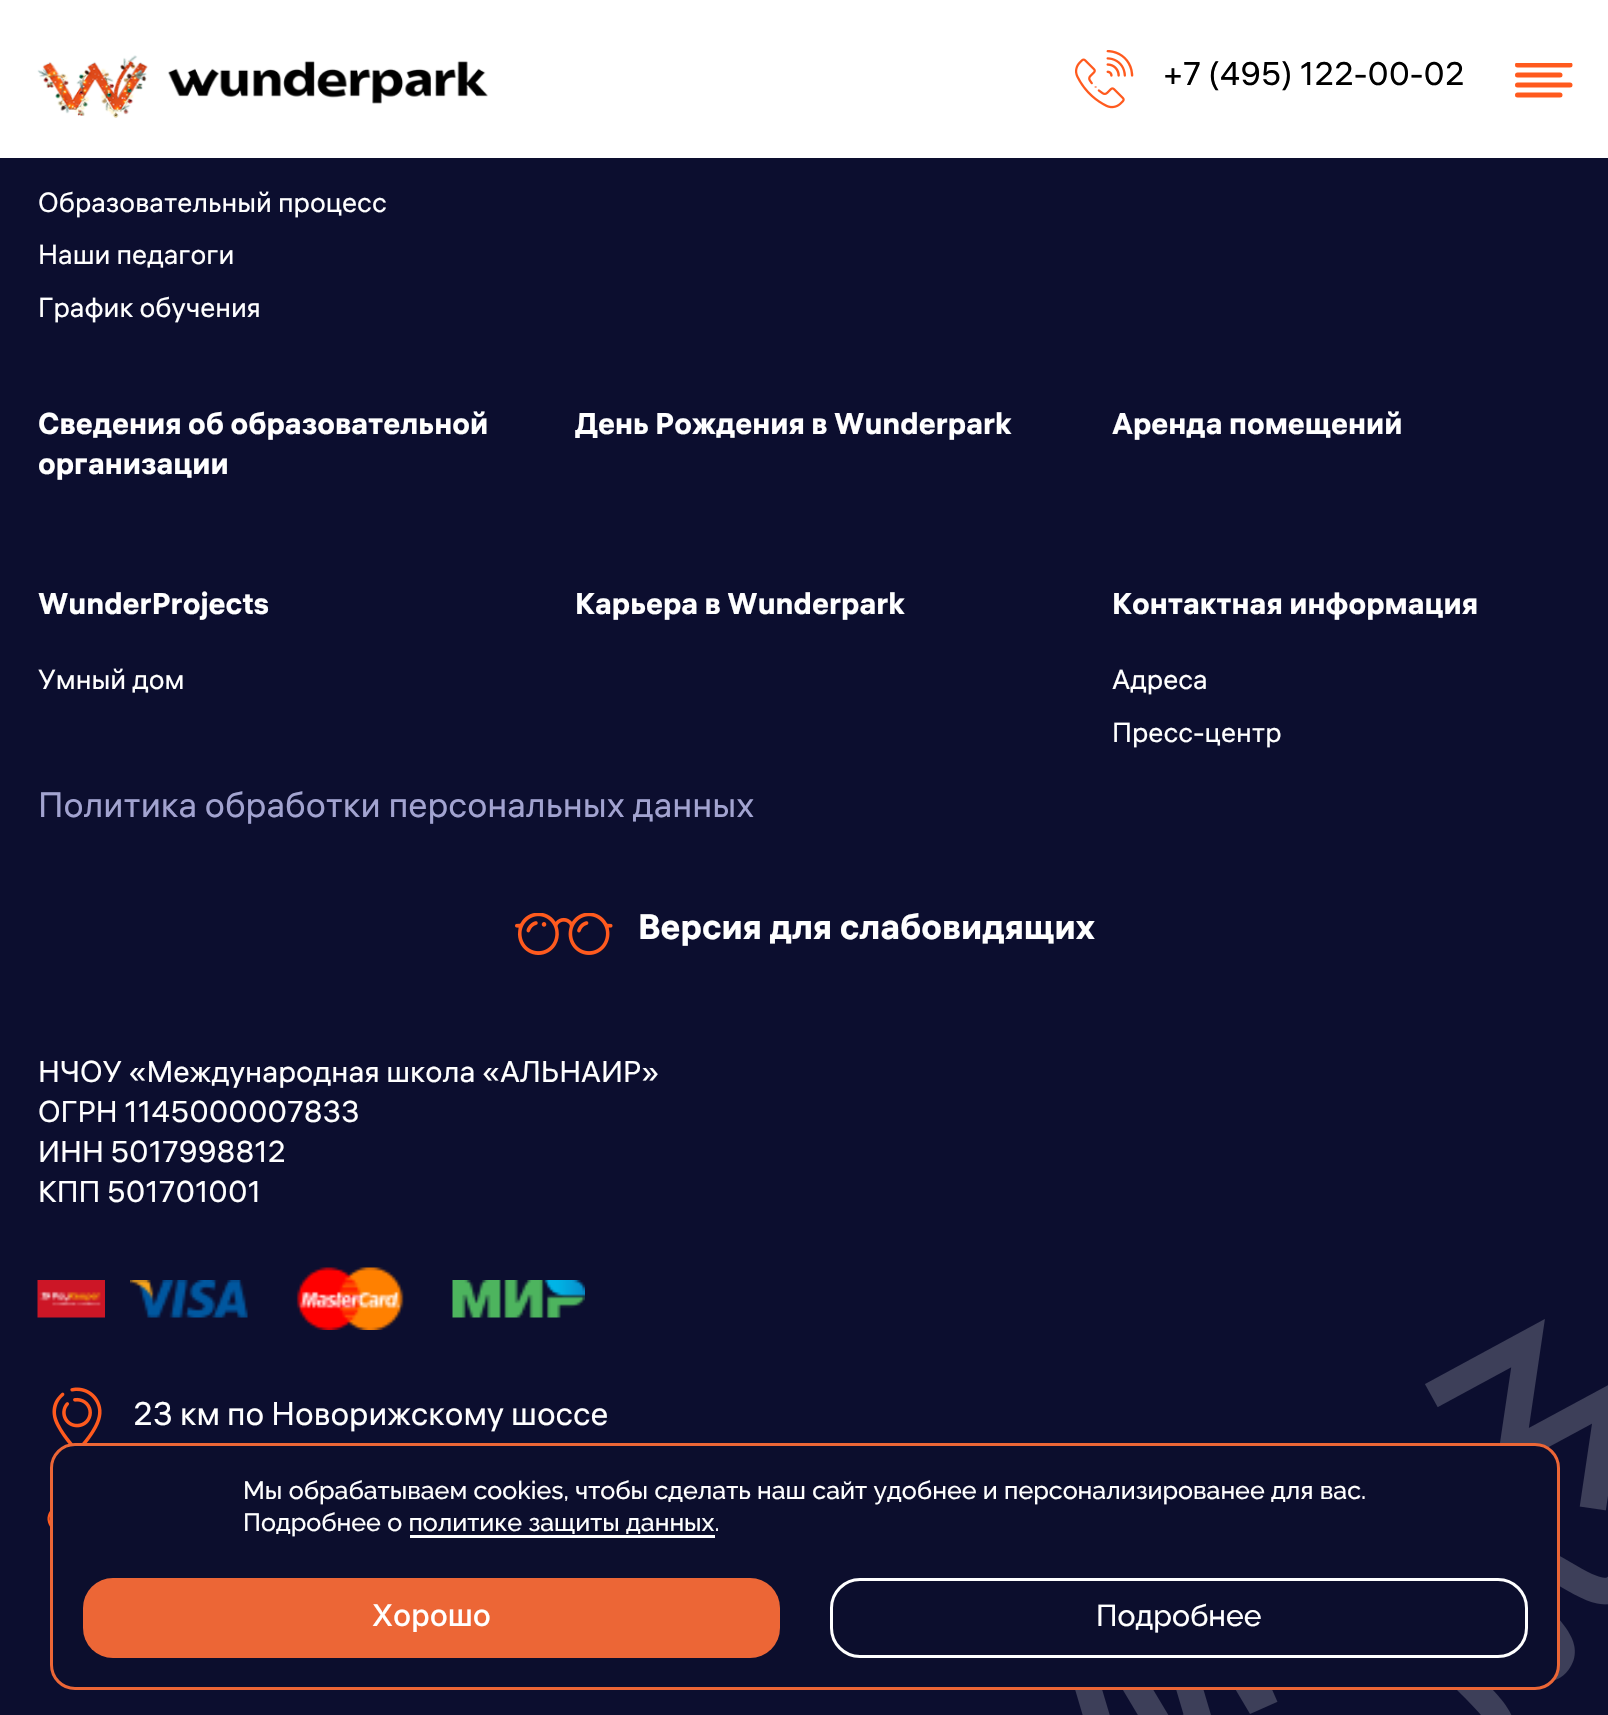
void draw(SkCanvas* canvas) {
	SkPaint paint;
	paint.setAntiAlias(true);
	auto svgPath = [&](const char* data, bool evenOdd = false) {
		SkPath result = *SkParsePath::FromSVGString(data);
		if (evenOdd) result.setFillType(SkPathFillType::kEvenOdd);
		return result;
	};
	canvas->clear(0xff0c0e2f);
	paint.setColor(0xffffffff);
	canvas->drawRect(SkRect::MakeXYWH(0, 0, 1608, 158), paint);
	canvas->drawImageRect(SkImages::DeferredFromEncodedData(SkData::MakeFromFileName("img1.png")), SkRect::MakeXYWH(37, 55, 451, 63), SkSamplingOptions());
	canvas->drawImageRect(SkImages::DeferredFromEncodedData(SkData::MakeFromFileName("img2.png")), SkRect::MakeXYWH(1075, 50, 59, 59), SkSamplingOptions());
	SkFont f1(fontMgr->matchFamilyStyle("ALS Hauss", SkFontStyle::Normal()), 32.5);
	f1.setSubpixel(true);
	paint.setColor(0xff000000);
	canvas->drawString("+7 (495) 122-00-02", 1163, 85, f1, paint);
	canvas->save();
	canvas->clipRect(SkRect::MakeXYWH(1515, 63, 58, 35));
	paint.setStroke(true);
	paint.setStrokeWidth(5);
	paint.setStrokeCap(SkPaint::kRound_Cap);
	paint.setColor(0xffff5a1e);
	canvas->drawPath(svgPath("M1517.5 65H1570"), paint);
	canvas->restore();
	canvas->drawPath(svgPath("M1517.5 85H1570M1517.5 75H1560M1517.5 95H1560"), paint);
	SkFont f2(fontMgr->matchFamilyStyle("ALS Hauss", SkFontStyle::Normal()), 27.5);
	f2.setSubpixel(true);
	paint.setStroke(false);
	paint.setColor(0xffffffff);
	canvas->drawString("Образовательный процесс", 38, 212, f2, paint);
	canvas->drawString("Наши педагоги", 38, 264, f2, paint);
	canvas->drawString("График обучения", 38, 317, f2, paint);
	SkFont f3(fontMgr->matchFamilyStyle("ALS Hauss", SkFontStyle::Bold()), 30);
	f3.setSubpixel(true);
	canvas->drawString("Сведения об образовательной", 38, 434, f3, paint);
	canvas->drawString("организации", 38, 474, f3, paint);
	canvas->drawString("День Рождения в Wunderpark", 575, 434, f3, paint);
	canvas->drawString("Аренда помещений", 1112, 434, f3, paint);
	canvas->drawString("WunderProjects", 38, 614, f3, paint);
	canvas->drawString("Умный дом", 38, 689, f2, paint);
	canvas->drawString("Карьера в Wunderpark", 575, 614, f3, paint);
	canvas->drawString("Контактная информация", 1112, 614, f3, paint);
	canvas->drawString("Адреса", 1112, 689, f2, paint);
	canvas->drawString("Пресс-центр", 1112, 742, f2, paint);
	SkFont f4(fontMgr->matchFamilyStyle("ALS Hauss", SkFontStyle::Normal()), 35);
	f4.setSubpixel(true);
	paint.setColor(0xffa2a3d0);
	canvas->drawString("Политика обработки персональных данных", 38, 817, f4, paint);
	canvas->drawImageRect(SkImages::DeferredFromEncodedData(SkData::MakeFromFileName("img3.png")), SkRect::MakeXYWH(515, 913, 98, 42), SkSamplingOptions());
	SkFont f5(fontMgr->matchFamilyStyle("ALS Hauss", SkFontStyle::Bold()), 35);
	f5.setSubpixel(true);
	paint.setColor(0xffffffff);
	canvas->drawString("Версия для слабовидящих", 638, 939, f5, paint);
	SkFont f6(fontMgr->matchFamilyStyle("ALS Hauss", SkFontStyle::Normal()), 30);
	f6.setSubpixel(true);
	canvas->drawString("НЧОУ «Международная школа «АЛЬНАИР»", 38, 1082, f6, paint);
	canvas->drawString("ОГРН 1145000007833", 38, 1122, f6, paint);
	canvas->drawString("ИНН 5017998812", 38, 1162, f6, paint);
	canvas->drawString("КПП 501701001", 38, 1202, f6, paint);
	canvas->drawImageRect(SkImages::DeferredFromEncodedData(SkData::MakeFromFileName("img4.png")), SkRect::MakeXYWH(37, 1280, 68, 38), SkSamplingOptions());
	canvas->drawImageRect(SkImages::DeferredFromEncodedData(SkData::MakeFromFileName("img5.png")), SkRect::MakeXYWH(130, 1280, 118, 38), SkSamplingOptions());
	canvas->drawImageRect(SkImages::DeferredFromEncodedData(SkData::MakeFromFileName("img6.png")), SkRect::MakeXYWH(296, 1267, 108, 63), SkSamplingOptions());
	canvas->drawImageRect(SkImages::DeferredFromEncodedData(SkData::MakeFromFileName("img7.png")), SkRect::MakeXYWH(452, 1280, 133, 38), SkSamplingOptions());
	canvas->drawImageRect(SkImages::DeferredFromEncodedData(SkData::MakeFromFileName("img8.png")), SkRect::MakeXYWH(52, 1387, 50, 57), SkSamplingOptions());
	canvas->drawString("23 км по Новорижскому шоссе", 133, 1425, f1, paint);
	canvas->drawImageRect(SkImages::DeferredFromEncodedData(SkData::MakeFromFileName("img9.png")), SkRect::MakeXYWH(47, 1511, 3, 16), SkSamplingOptions());
	canvas->drawImageRect(SkImages::DeferredFromEncodedData(SkData::MakeFromFileName("img10.png")), SkRect::MakeXYWH(1075, 1319, 533, 396), SkSamplingOptions());
	paint.setColor(0xff0c0e2d);
	canvas->drawRoundRect(SkRect::MakeXYWH(51.5, 1444.5, 1507, 244), 23.5, 23.5, paint);
	paint.setStroke(true);
	paint.setStrokeWidth(3);
	paint.setStrokeCap(SkPaint::kButt_Cap);
	paint.setColor(0xffec6636);
	canvas->drawRoundRect(SkRect::MakeXYWH(51.5, 1444.5, 1507, 244), 23.5, 23.5, paint);
	SkFont f7(fontMgr->matchFamilyStyle("Raleway", SkFontStyle(500, SkFontStyle::kNormal_Width, SkFontStyle::kUpright_Slant)), 25);
	f7.setSubpixel(true);
	paint.setStroke(false);
	paint.setColor(0xffffffff);
	canvas->drawString("Мы обрабатываем cookies, чтобы сделать наш сайт удобнее и персонализированее для вас.", 243, 1499, f7, paint);
	canvas->drawString("Подробнее о политике защиты данных.", 243, 1531, f7, paint);
	canvas->drawRect(SkRect::MakeXYWH(410, 1535, 305, 3), paint);
	paint.setColor(0xffec6636);
	canvas->drawRoundRect(SkRect::MakeXYWH(83, 1578, 697, 80), 30, 30, paint);
	SkFont f8(fontMgr->matchFamilyStyle("Inter", SkFontStyle(500, SkFontStyle::kNormal_Width, SkFontStyle::kUpright_Slant)), 30);
	f8.setSubpixel(true);
	paint.setColor(0xffffffff);
	canvas->drawString("Хорошо", 372, 1626, f8, paint);
	paint.setStroke(true);
	canvas->drawRoundRect(SkRect::MakeXYWH(831.5, 1579.5, 695, 77), 28.5, 28.5, paint);
	SkFont f9(fontMgr->matchFamilyStyle("Raleway", SkFontStyle(500, SkFontStyle::kNormal_Width, SkFontStyle::kUpright_Slant)), 30);
	f9.setSubpixel(true);
	paint.setStroke(false);
	canvas->drawString("Подробнее", 1096, 1626, f9, paint);
}
